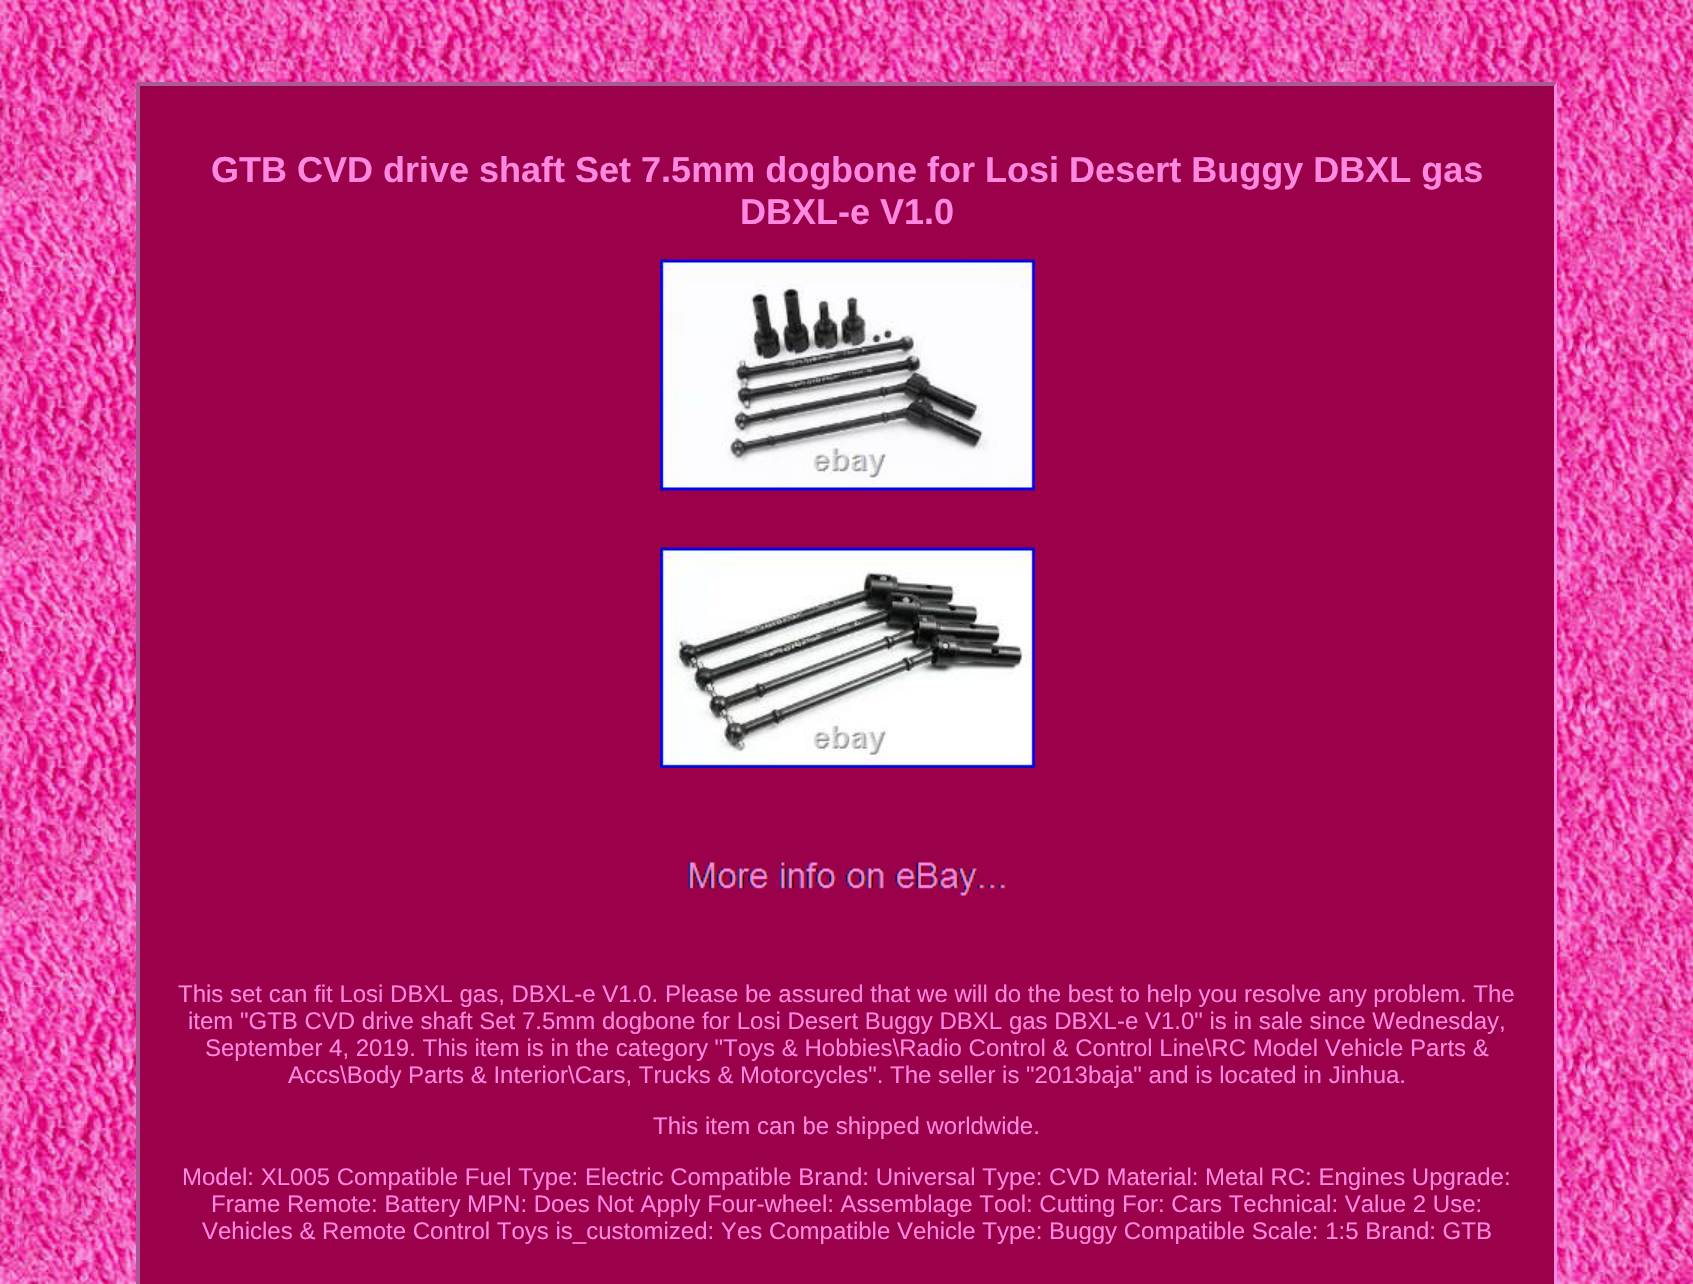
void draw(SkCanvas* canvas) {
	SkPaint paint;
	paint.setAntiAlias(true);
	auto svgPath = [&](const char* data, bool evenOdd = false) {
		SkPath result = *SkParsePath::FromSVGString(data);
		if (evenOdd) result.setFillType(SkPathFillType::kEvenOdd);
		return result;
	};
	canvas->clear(0xffffffff);
	canvas->drawImageRect(SkImages::DeferredFromEncodedData(SkData::MakeFromFileName("img1.png")), SkRect::MakeXYWH(0, 0, 1693, 1284), SkSamplingOptions());
	paint.setColor(0xff9b004b);
	canvas->drawRect(SkRect::MakeXYWH(137, 83, 1420, 1201), paint);
	paint.setColor(0xffaa5b95);
	canvas->drawPath(svgPath("M136 82H1557L1554 86H140Z"), paint);
	paint.setColor(0xffff88e0);
	canvas->drawPath(svgPath("M1557 82V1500L1554 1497V86Z"), paint);
	paint.setColor(0xffaa5b95);
	canvas->drawPath(svgPath("M136 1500V82L140 86V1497Z"), paint);
	SkFont f1(fontMgr->matchFamilyStyle("Liberation Sans", SkFontStyle::Bold()), 36);
	f1.setSubpixel(true);
	paint.setColor(0xffff88e0);
	canvas->drawString("GTB CVD drive shaft Set 7.5mm dogbone for Losi Desert Buggy DBXL gas", 211, 182, f1, paint);
	canvas->drawString("DBXL-e V1.0", 740, 224, f1, paint);
	canvas->drawImageRect(SkImages::DeferredFromEncodedData(SkData::MakeFromFileName("img2.png")), SkRect::MakeXYWH(660, 259, 375, 232), SkSamplingOptions());
	canvas->drawImageRect(SkImages::DeferredFromEncodedData(SkData::MakeFromFileName("img3.png")), SkRect::MakeXYWH(660, 547, 375, 221), SkSamplingOptions());
	canvas->drawImageRect(SkImages::DeferredFromEncodedData(SkData::MakeFromFileName("img4.png")), SkRect::MakeXYWH(688, 862, 318, 34), SkSamplingOptions());
	SkFont f2(fontMgr->matchFamilyStyle("Liberation Sans", SkFontStyle::Normal()), 24);
	f2.setSubpixel(true);
	canvas->drawString("This set can fit Losi DBXL gas, DBXL-e V1.0. Please be assured that we will do the best to help you resolve any problem. The", 178, 1002, f2, paint);
	canvas->drawString("item \"GTB CVD drive shaft Set 7.5mm dogbone for Losi Desert Buggy DBXL gas DBXL-e V1.0\" is in sale since Wednesday,", 188, 1029, f2, paint);
	canvas->drawString("September 4, 2019. This item is in the category \"Toys & Hobbies\\Radio Control & Control Line\\RC Model Vehicle Parts &", 205, 1056, f2, paint);
	canvas->drawString("Accs\\Body Parts & Interior\\Cars, Trucks & Motorcycles\". The seller is \"2013baja\" and is located in Jinhua.", 288, 1083, f2, paint);
	canvas->drawString("This item can be shipped worldwide.", 653, 1134, f2, paint);
	canvas->drawString("Model: XL005 Compatible Fuel Type: Electric Compatible Brand: Universal Type: CVD Material: Metal RC: Engines Upgrade:", 182, 1185, f2, paint);
	canvas->drawString("Frame Remote: Battery MPN: Does Not Apply Four-wheel: Assemblage Tool: Cutting For: Cars Technical: Value 2 Use:", 211, 1212, f2, paint);
	canvas->drawString("Vehicles & Remote Control Toys is_customized: Yes Compatible Vehicle Type: Buggy Compatible Scale: 1:5 Brand: GTB", 202, 1239, f2, paint);
}
